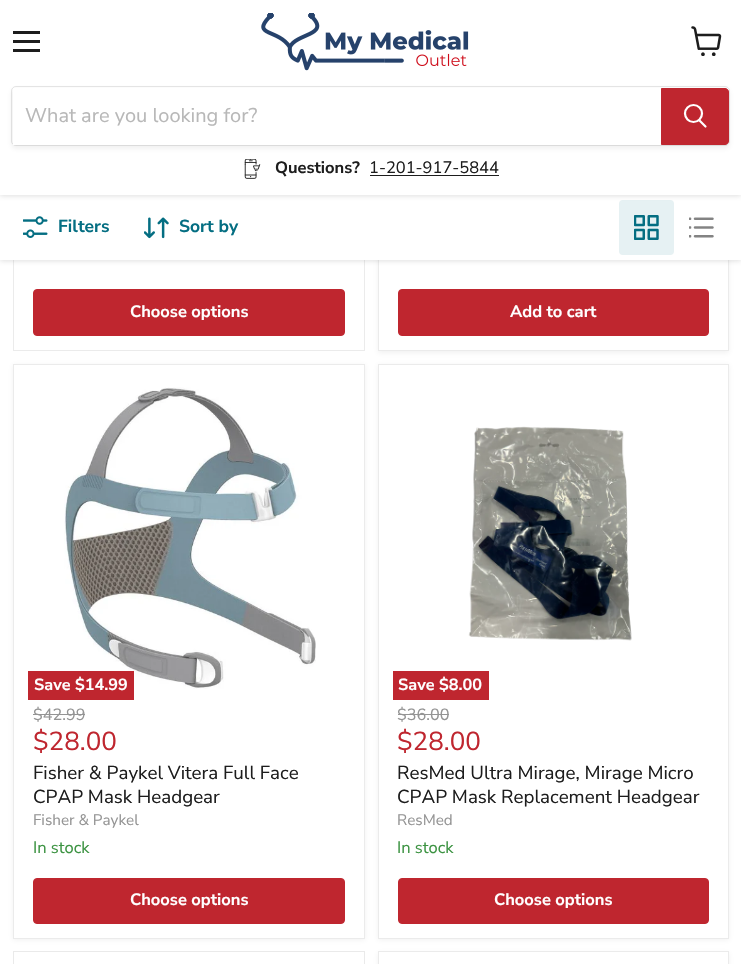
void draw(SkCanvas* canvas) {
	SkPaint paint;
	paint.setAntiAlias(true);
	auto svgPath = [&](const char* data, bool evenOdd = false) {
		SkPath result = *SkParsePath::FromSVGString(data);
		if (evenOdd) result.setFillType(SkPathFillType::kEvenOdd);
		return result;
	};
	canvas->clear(0xffffffff);
	paint.setStroke(true);
	paint.setStrokeWidth(1);
	paint.setColor(0xffebebeb);
	canvas->drawRect(SkRect::MakeXYWH(13.5, -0.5, 351, 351), paint);
	paint.setStroke(false);
	paint.setColor(0x1c808080);
	paint.setMaskFilter(SkMaskFilter::MakeBlur(kNormal_SkBlurStyle, 2.5));
	canvas->drawRect(SkRect::MakeXYWH(378, -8, 351, 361), paint);
	paint.setMaskFilter(nullptr);
	paint.setColor(0xffffffff);
	canvas->drawRect(SkRect::MakeXYWH(379, 260, 349, 90), paint);
	paint.setStroke(true);
	paint.setColor(0xffebebeb);
	canvas->drawRect(SkRect::MakeXYWH(378.5, -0.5, 350, 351), paint);
	paint.setStroke(false);
	paint.setColor(0x40808080);
	paint.setMaskFilter(SkMaskFilter::MakeBlur(kNormal_SkBlurStyle, 2.5));
	canvas->drawRect(SkRect::MakeXYWH(0, 196, 741, 65), paint);
	paint.setMaskFilter(nullptr);
	paint.setColor(0xffffffff);
	canvas->drawRect(SkRect::MakeXYWH(0, 195, 741, 65), paint);
	paint.setColor(0xffe6f1f3);
	canvas->drawRoundRect(SkRect::MakeXYWH(619, 200, 55, 55), 4, 4, paint);
	paint.setColor(0x40808080);
	paint.setMaskFilter(SkMaskFilter::MakeBlur(kNormal_SkBlurStyle, 2.5));
	canvas->drawRect(SkRect::MakeXYWH(0, 1, 741, 195), paint);
	paint.setMaskFilter(nullptr);
	paint.setColor(0xffffffff);
	canvas->drawRect(SkRect::MakeXYWH(0, 0, 741, 195), paint);
	paint.setColor(0xff1d1d1d);
	canvas->drawRect(SkRect::MakeXYWH(13, 31, 27, 3), paint);
	canvas->drawRect(SkRect::MakeXYWH(13, 40, 27, 3), paint);
	canvas->drawRect(SkRect::MakeXYWH(13, 49, 27, 3), paint);
	canvas->drawImageRect(SkImages::DeferredFromEncodedData(SkData::MakeFromFileName("img1.png")), SkRect::MakeXYWH(691, 26, 31, 30), SkSamplingOptions());
	canvas->drawImageRect(SkImages::DeferredFromEncodedData(SkData::MakeFromFileName("img2.png")), SkRect::MakeXYWH(261, 13, 208, 58), SkSamplingOptions());
	paint.setColor(0x1c808080);
	paint.setMaskFilter(SkMaskFilter::MakeBlur(kNormal_SkBlurStyle, 2));
	canvas->drawRoundRect(SkRect::MakeXYWH(11, 89, 719, 60), 5, 5, paint);
	paint.setMaskFilter(nullptr);
	paint.setStroke(true);
	paint.setColor(0x33808080);
	canvas->drawRoundRect(SkRect::MakeXYWH(11.5, 86.5, 718, 59), 4.5, 4.5, paint);
	paint.setStroke(false);
	paint.setColor(0xffffffff);
	canvas->drawRect(SkRect::MakeXYWH(13, 88, 648, 57), paint);
	SkFont f1(fontMgr->matchFamilyStyle("Nunito Sans", SkFontStyle::Normal()), 20);
	f1.setSubpixel(true);
	paint.setColor(0xffb8b8b8);
	canvas->drawString("What are you looking for?", 25, 122, f1, paint);
	paint.setColor(0xffbf262f);
	canvas->drawPath(svgPath("M661.5 88.5H725C727 88.5 728.5 90 728.5 92V141C728.5 143 727 144.5 725 144.5H661.5Z"), paint);
	paint.setStroke(true);
	canvas->drawPath(svgPath("M661.5 88.5H725C727 88.5 728.5 90 728.5 92V141C728.5 143 727 144.5 725 144.5H661.5Z"), paint);
	paint.setStrokeWidth(2.2);
	paint.setStrokeCap(SkPaint::kRound_Cap);
	paint.setColor(0xffffffff);
	canvas->drawPath(svgPath("M705.5 126.5L699.5 120.5"), paint);
	paint.setStrokeCap(SkPaint::kButt_Cap);
	canvas->drawCircle(693.5, 113.5, 8.5, paint);
	canvas->drawImageRect(SkImages::DeferredFromEncodedData(SkData::MakeFromFileName("img3.png")), SkRect::MakeXYWH(244, 159, 17, 20), SkSamplingOptions());
	SkFont f2(fontMgr->matchFamilyStyle("Nunito Sans", SkFontStyle::Bold()), 16.5);
	f2.setSubpixel(true);
	paint.setStroke(false);
	paint.setColor(0xff1d1d1d);
	canvas->drawString("Questions?", 275, 173, f2, paint);
	SkFont f3(fontMgr->matchFamilyStyle("Nunito Sans", SkFontStyle::Normal()), 16.5);
	f3.setSubpixel(true);
	canvas->drawString("1-201-917-5844", 369, 173, f3, paint);
	canvas->drawRect(SkRect::MakeXYWH(370, 175, 129, 1), paint);
	canvas->drawImageRect(SkImages::DeferredFromEncodedData(SkData::MakeFromFileName("img4.png")), SkRect::MakeXYWH(23, 216, 25, 22), SkSamplingOptions());
	SkFont f4(fontMgr->matchFamilyStyle("Nunito Sans", SkFontStyle::Bold()), 17.5);
	f4.setSubpixel(true);
	paint.setColor(0xff046e82);
	canvas->drawString("Filters", 58, 232, f4, paint);
	canvas->drawImageRect(SkImages::DeferredFromEncodedData(SkData::MakeFromFileName("img5.png")), SkRect::MakeXYWH(144, 217, 25, 22), SkSamplingOptions());
	canvas->drawString("Sort by", 179, 232, f4, paint);
	canvas->drawImageRect(SkImages::DeferredFromEncodedData(SkData::MakeFromFileName("img6.png")), SkRect::MakeXYWH(634, 215, 25, 25), SkSamplingOptions());
	canvas->drawImageRect(SkImages::DeferredFromEncodedData(SkData::MakeFromFileName("img7.png")), SkRect::MakeXYWH(689, 217, 25, 21), SkSamplingOptions());
	paint.setColor(0xffbf262f);
	canvas->drawRoundRect(SkRect::MakeXYWH(33.5, 289.5, 311, 46), 3.5, 3.5, paint);
	paint.setStroke(true);
	paint.setStrokeWidth(1);
	canvas->drawRoundRect(SkRect::MakeXYWH(33.5, 289.5, 311, 46), 3.5, 3.5, paint);
	paint.setStroke(false);
	paint.setColor(0xffffffff);
	canvas->drawString("Choose options", 130, 317, f2, paint);
	paint.setColor(0xffbf262f);
	canvas->drawRoundRect(SkRect::MakeXYWH(398.5, 289.5, 310, 46), 3.5, 3.5, paint);
	paint.setStroke(true);
	canvas->drawRoundRect(SkRect::MakeXYWH(398.5, 289.5, 310, 46), 3.5, 3.5, paint);
	paint.setStroke(false);
	paint.setColor(0xffffffff);
	canvas->drawString("Add to cart", 510, 317, f2, paint);
	paint.setColor(0x1c808080);
	paint.setMaskFilter(SkMaskFilter::MakeBlur(kNormal_SkBlurStyle, 2.5));
	canvas->drawRect(SkRect::MakeXYWH(13, 365, 352, 575), paint);
	paint.setMaskFilter(nullptr);
	paint.setColor(0xffffffff);
	canvas->drawRect(SkRect::MakeXYWH(13.5, 364.5, 351, 574), paint);
	paint.setStroke(true);
	paint.setColor(0xffebebeb);
	canvas->drawRect(SkRect::MakeXYWH(13.5, 364.5, 351, 574), paint);
	canvas->drawImageRect(SkImages::DeferredFromEncodedData(SkData::MakeFromFileName("img8.png")), SkRect::MakeXYWH(64, 387, 252, 302), SkSamplingOptions());
	paint.setStroke(false);
	paint.setColor(0xffbf262f);
	canvas->drawRect(SkRect::MakeXYWH(28, 671, 106, 29), paint);
	SkFont f5(fontMgr->matchFamilyStyle("Nunito Sans", SkFontStyle::Bold()), 16.25);
	f5.setSubpixel(true);
	paint.setColor(0xffffffff);
	canvas->drawString("Save $14.99", 34, 690, f5, paint);
	SkFont f6(fontMgr->matchFamilyStyle("Nunito Sans", SkFontStyle::Normal()), 16.25);
	f6.setSubpixel(true);
	paint.setColor(0xff949494);
	canvas->drawString("$42.99", 33, 720, f6, paint);
	canvas->drawRect(SkRect::MakeXYWH(33, 714, 52, 1), paint);
	SkFont f7(fontMgr->matchFamilyStyle("Nunito Sans", SkFontStyle::Normal()), 26);
	f7.setSubpixel(true);
	paint.setColor(0xffbf262f);
	canvas->drawString("$28.00", 33, 750, f7, paint);
	SkFont f8(fontMgr->matchFamilyStyle("Nunito Sans", SkFontStyle::Normal()), 18.75);
	f8.setSubpixel(true);
	paint.setColor(0xff1d1d1d);
	canvas->drawString("Fisher & Paykel Vitera Full Face", 33, 779, f8, paint);
	canvas->drawString("CPAP Mask Headgear", 33, 803, f8, paint);
	SkFont f9(fontMgr->matchFamilyStyle("Nunito Sans", SkFontStyle::Normal()), 15.25);
	f9.setSubpixel(true);
	paint.setColor(0xff949494);
	canvas->drawString("Fisher & Paykel", 33, 825, f9, paint);
	paint.setColor(0xff3c9342);
	canvas->drawString("In stock", 33, 853, f3, paint);
	paint.setColor(0xffbf262f);
	canvas->drawRoundRect(SkRect::MakeXYWH(33.5, 878.5, 311, 45), 3.5, 3.5, paint);
	paint.setStroke(true);
	canvas->drawRoundRect(SkRect::MakeXYWH(33.5, 878.5, 311, 45), 3.5, 3.5, paint);
	paint.setStroke(false);
	paint.setColor(0xffffffff);
	canvas->drawString("Choose options", 130, 905, f2, paint);
	paint.setColor(0x1c808080);
	paint.setMaskFilter(SkMaskFilter::MakeBlur(kNormal_SkBlurStyle, 2.5));
	canvas->drawRect(SkRect::MakeXYWH(378, 365, 351, 575), paint);
	paint.setMaskFilter(nullptr);
	paint.setColor(0xffffffff);
	canvas->drawRect(SkRect::MakeXYWH(378.5, 364.5, 350, 574), paint);
	paint.setStroke(true);
	paint.setColor(0xffebebeb);
	canvas->drawRect(SkRect::MakeXYWH(378.5, 364.5, 350, 574), paint);
	canvas->drawImageRect(SkImages::DeferredFromEncodedData(SkData::MakeFromFileName("img9.png")), SkRect::MakeXYWH(468, 426, 164, 215), SkSamplingOptions());
	paint.setStroke(false);
	paint.setColor(0xffbf262f);
	canvas->drawRect(SkRect::MakeXYWH(393, 671, 96, 29), paint);
	paint.setColor(0xffffffff);
	canvas->drawString("Save $8.00", 398, 690, f5, paint);
	paint.setColor(0xff949494);
	canvas->drawString("$36.00", 397, 720, f6, paint);
	canvas->drawRect(SkRect::MakeXYWH(398, 714, 51, 1), paint);
	paint.setColor(0xffbf262f);
	canvas->drawString("$28.00", 397, 750, f7, paint);
	paint.setColor(0xff1d1d1d);
	canvas->drawString("ResMed Ultra Mirage, Mirage Micro", 397, 779, f8, paint);
	canvas->drawString("CPAP Mask Replacement Headgear", 397, 803, f8, paint);
	paint.setColor(0xff949494);
	canvas->drawString("ResMed", 397, 825, f9, paint);
	paint.setColor(0xff3c9342);
	canvas->drawString("In stock", 397, 853, f3, paint);
	paint.setColor(0xffbf262f);
	canvas->drawRoundRect(SkRect::MakeXYWH(398.5, 878.5, 310, 45), 3.5, 3.5, paint);
	paint.setStroke(true);
	canvas->drawRoundRect(SkRect::MakeXYWH(398.5, 878.5, 310, 45), 3.5, 3.5, paint);
	paint.setStroke(false);
	paint.setColor(0xffffffff);
	canvas->drawString("Choose options", 494, 905, f2, paint);
	paint.setStroke(true);
	paint.setColor(0xffeaeaea);
	canvas->drawRect(SkRect::MakeXYWH(13.5, 951.5, 351, 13), paint);
	paint.setStroke(false);
	paint.setColor(0x1c808080);
	paint.setMaskFilter(SkMaskFilter::MakeBlur(kNormal_SkBlurStyle, 2.5));
	canvas->drawRect(SkRect::MakeXYWH(378, 953, 351, 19), paint);
	paint.setMaskFilter(nullptr);
	paint.setColor(0xffffffff);
	canvas->drawRect(SkRect::MakeXYWH(378.5, 951.5, 350, 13), paint);
	paint.setStroke(true);
	paint.setColor(0xffebebeb);
	canvas->drawRect(SkRect::MakeXYWH(378.5, 951.5, 350, 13), paint);
}
